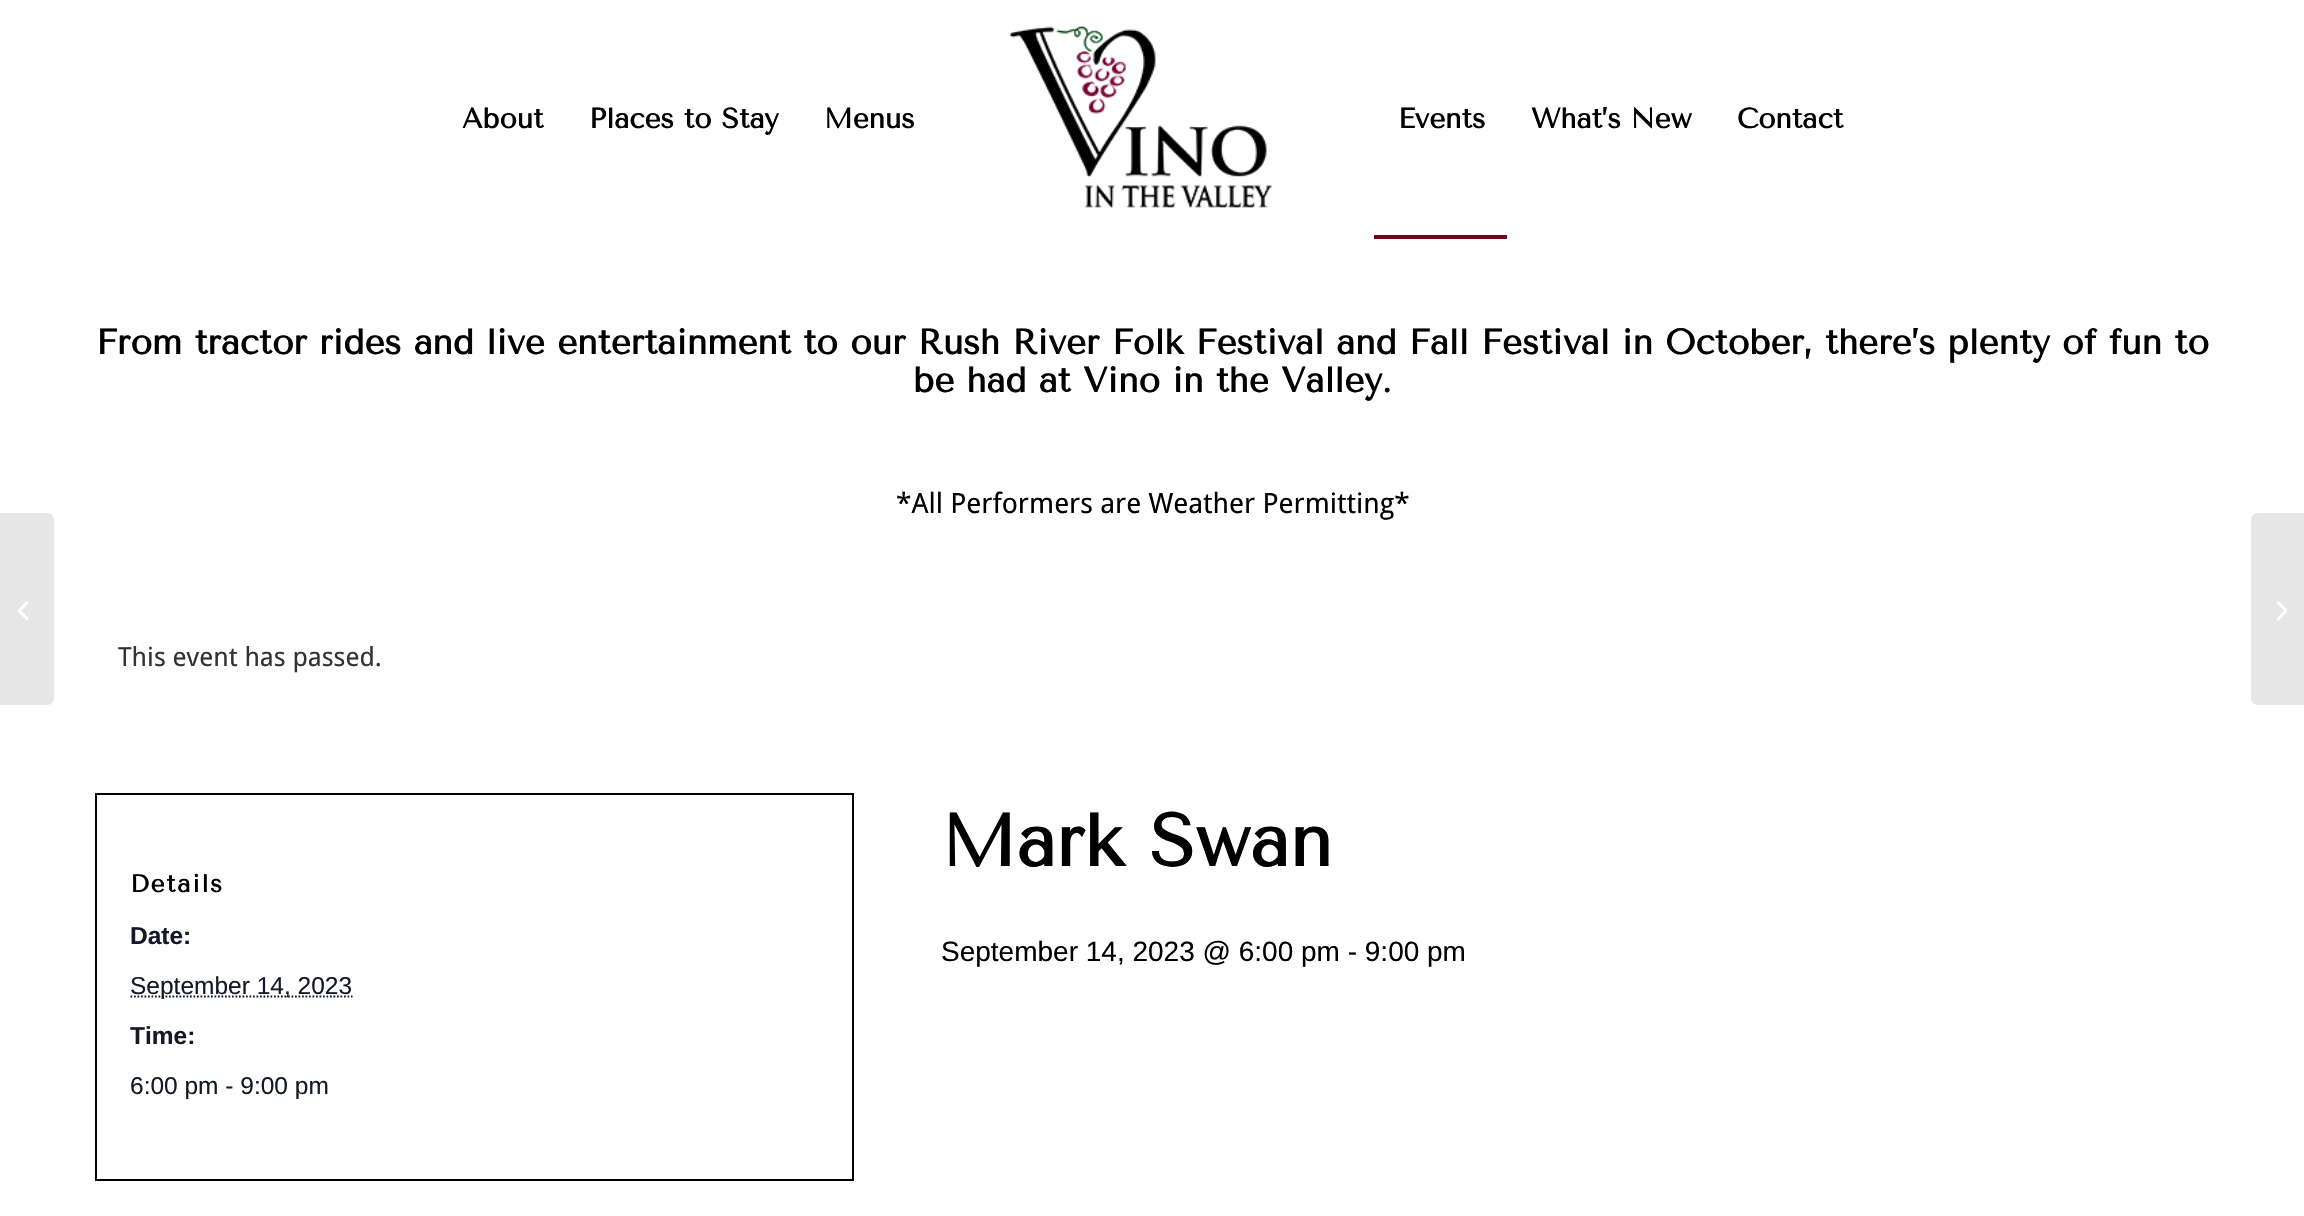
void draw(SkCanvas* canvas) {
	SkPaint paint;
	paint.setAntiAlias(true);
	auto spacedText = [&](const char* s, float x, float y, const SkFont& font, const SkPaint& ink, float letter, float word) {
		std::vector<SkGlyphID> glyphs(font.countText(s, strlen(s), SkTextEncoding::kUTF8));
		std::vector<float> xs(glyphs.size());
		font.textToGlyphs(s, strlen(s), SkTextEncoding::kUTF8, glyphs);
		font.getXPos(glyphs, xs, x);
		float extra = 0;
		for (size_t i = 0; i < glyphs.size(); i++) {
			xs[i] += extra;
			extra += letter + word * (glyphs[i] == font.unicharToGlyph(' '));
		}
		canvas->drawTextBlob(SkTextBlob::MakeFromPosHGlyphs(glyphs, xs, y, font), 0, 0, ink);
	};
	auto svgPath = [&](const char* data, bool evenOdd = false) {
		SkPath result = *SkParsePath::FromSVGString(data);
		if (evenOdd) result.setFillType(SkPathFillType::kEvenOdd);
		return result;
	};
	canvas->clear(0xffffffff);
	canvas->drawImageRect(SkImages::DeferredFromEncodedData(SkData::MakeFromFileName("img1.png")), SkRect::MakeXYWH(1010, 26, 262, 182), SkSamplingOptions());
	SkFont f1(fontMgr->matchFamilyStyle("Tenor Sans", SkFontStyle::Bold()), 28);
	f1.setSubpixel(true);
	paint.setColor(0xff000000);
	canvas->drawString("About", 462, 128, f1, paint);
	canvas->drawString("Places to Stay", 589, 128, f1, paint);
	canvas->drawString("Menus", 824, 128, f1, paint);
	canvas->drawString("Events", 1398, 128, f1, paint);
	paint.setColor(0xff6b081a);
	canvas->drawRect(SkRect::MakeXYWH(1374, 235, 133, 4), paint);
	paint.setColor(0xff000000);
	canvas->drawString("What’s New", 1531, 128, f1, paint);
	canvas->drawString("Contact", 1737, 128, f1, paint);
	paint.setColor(0xffe6e6e6);
	canvas->drawPath(svgPath("M0 513H47C51 513 54 516 54 520V698C54 702 51 705 47 705H0Z"), paint);
	canvas->drawImageRect(SkImages::DeferredFromEncodedData(SkData::MakeFromFileName("img2.png")), SkRect::MakeXYWH(18, 601, 10, 20), SkSamplingOptions());
	SkFont f2(fontMgr->matchFamilyStyle("Tenor Sans", SkFontStyle::Bold()), 35);
	f2.setSubpixel(true);
	paint.setColor(0xff000000);
	canvas->drawString("From tractor rides and live entertainment to our Rush River Folk Festival and Fall Festival in October, there’s plenty of fun to", 96, 354, f2, paint);
	canvas->drawString("be had at Vino in the Valley.", 913, 392, f2, paint);
	SkFont f3(fontMgr->matchFamilyStyle("Droid Sans", SkFontStyle::Normal()), 28);
	f3.setSubpixel(true);
	canvas->drawString("*All Performers are Weather Permitting*", 896, 513, f3, paint);
	SkFont f4(fontMgr->matchFamilyStyle("Droid Sans", SkFontStyle::Normal()), 26.25);
	f4.setSubpixel(true);
	paint.setColor(0xff333333);
	canvas->drawString("This event has passed.", 118, 666, f4, paint);
	paint.setStroke(true);
	paint.setStrokeWidth(2);
	paint.setColor(0xff000000);
	canvas->drawRect(SkRect::MakeXYWH(96, 794, 757, 386), paint);
	SkFont f5(fontMgr->matchFamilyStyle("Tenor Sans", SkFontStyle::Bold()), 24.5);
	f5.setSubpixel(true);
	paint.setStroke(false);
	spacedText("Details", 130, 892, f5, paint, 1.75, 0);
	SkFont f6(fontMgr->matchFamilyStyle("Liberation Sans", SkFontStyle::Bold()), 24.5);
	f6.setSubpixel(true);
	paint.setColor(0xff141827);
	canvas->drawString("Date:", 130, 944, f6, paint);
	paint.setStroke(true);
	paint.setStrokeWidth(1.8);
	paint.setPathEffect(SkDashPathEffect::Make({{1.75f, 1.75f}}, 0));
	canvas->drawPath(svgPath("M130.5 996.5H352.5"), paint);
	paint.setPathEffect(nullptr);
	SkFont f7(fontMgr->matchFamilyStyle("Liberation Sans", SkFontStyle::Normal()), 24.5);
	f7.setSubpixel(true);
	paint.setStroke(false);
	canvas->drawString("September 14, 2023", 130, 994, f7, paint);
	canvas->drawString("Time:", 130, 1044, f6, paint);
	canvas->drawString("6:00 pm - 9:00 pm", 130, 1094, f7, paint);
	SkFont f8(fontMgr->matchFamilyStyle("Tenor Sans", SkFontStyle::Bold()), 73.5);
	f8.setSubpixel(true);
	paint.setColor(0xff000000);
	canvas->drawString("Mark Swan", 941, 866, f8, paint);
	SkFont f9(fontMgr->matchFamilyStyle("Liberation Sans", SkFontStyle::Normal()), 28);
	f9.setSubpixel(true);
	canvas->drawString("September 14, 2023 @ 6:00 pm - 9:00 pm", 941, 961, f9, paint);
	paint.setColor(0xffe6e6e6);
	canvas->drawPath(svgPath("M2258 513H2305V705H2258C2254 705 2251 702 2251 698V520C2251 516 2254 513 2258 513Z"), paint);
	canvas->drawImageRect(SkImages::DeferredFromEncodedData(SkData::MakeFromFileName("img3.png")), SkRect::MakeXYWH(2277, 601, 10, 20), SkSamplingOptions());
}
